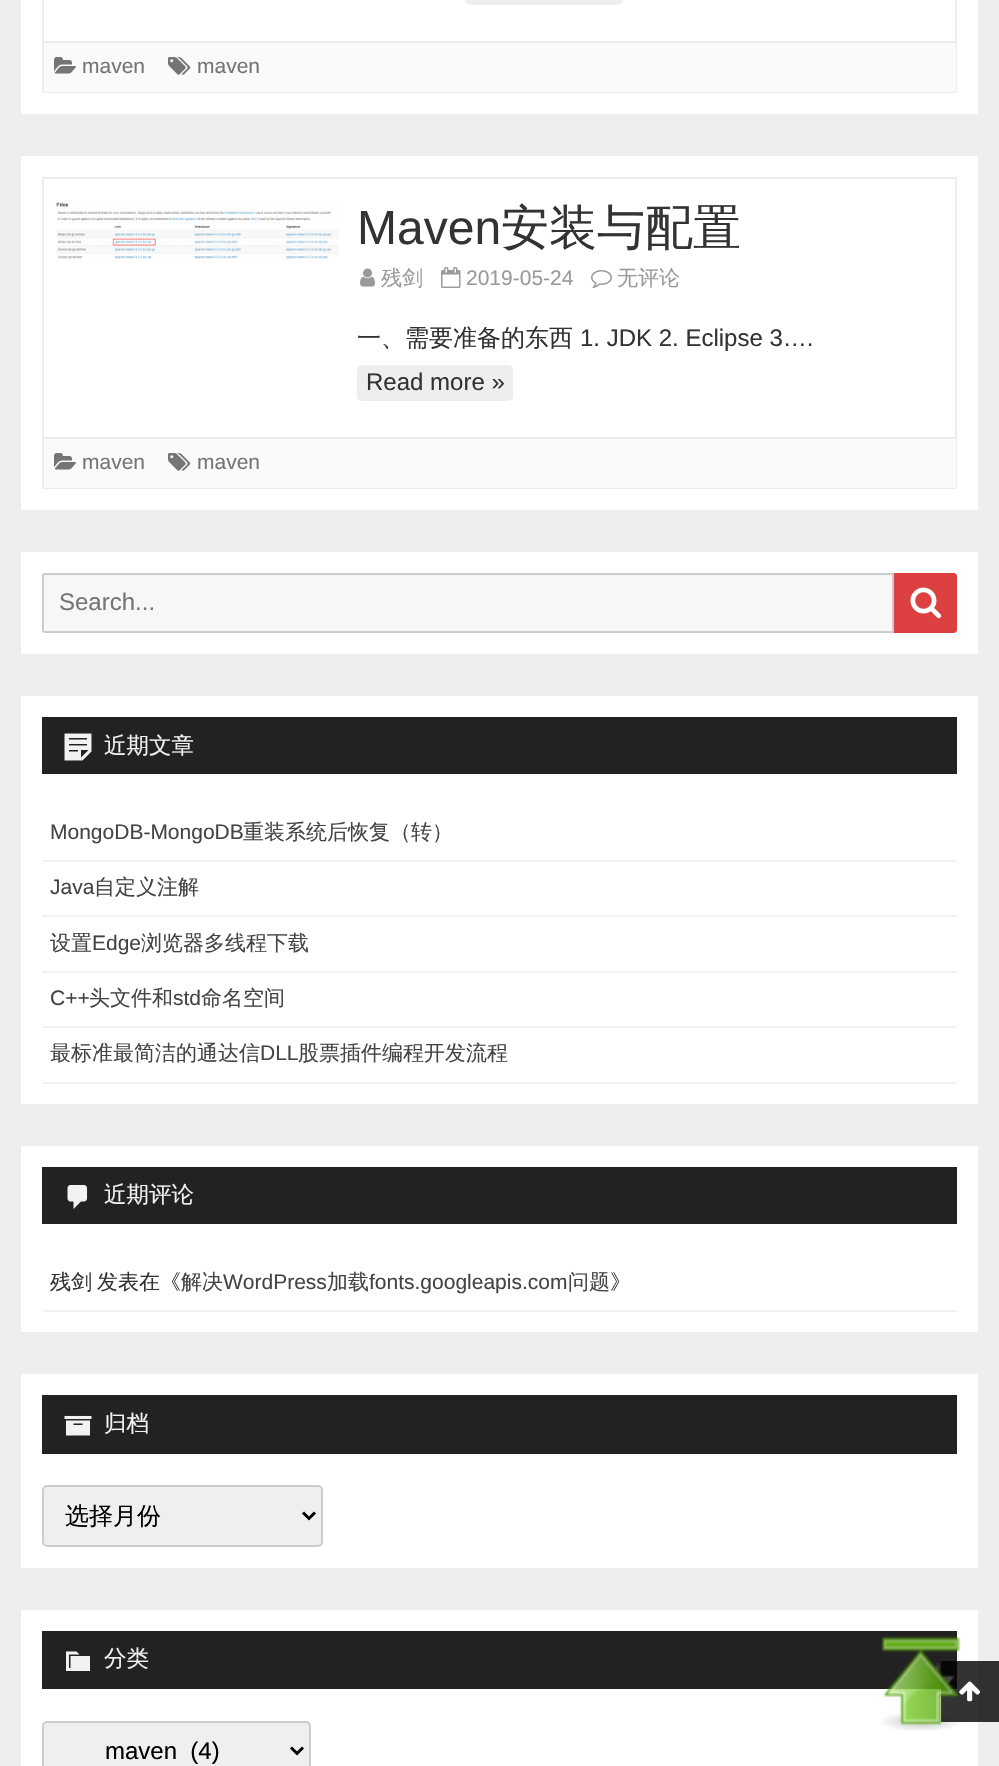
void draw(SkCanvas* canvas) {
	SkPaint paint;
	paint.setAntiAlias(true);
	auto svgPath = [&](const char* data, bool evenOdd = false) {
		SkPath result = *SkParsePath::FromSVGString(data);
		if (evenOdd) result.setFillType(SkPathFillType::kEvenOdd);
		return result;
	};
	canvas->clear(0xffeeeeee);
	paint.setColor(0xff303030);
	canvas->drawRect(SkRect::MakeXYWH(978, 1661, 21, 61), paint);
	paint.setColor(0xffffffff);
	canvas->drawRect(SkRect::MakeXYWH(21, 0, 957, 114), paint);
	paint.setStroke(true);
	paint.setStrokeWidth(2);
	paint.setColor(0xffededed);
	canvas->drawRect(SkRect::MakeXYWH(43, -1, 913, 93), paint);
	paint.setStroke(false);
	paint.setColor(0xffeeeeee);
	canvas->drawRoundRect(SkRect::MakeXYWH(465, -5, 158, 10), 5, 5, paint);
	paint.setColor(0xfffafafa);
	canvas->drawRect(SkRect::MakeXYWH(44, 43, 912, 49), paint);
	paint.setColor(0xffededed);
	canvas->drawRect(SkRect::MakeXYWH(44, 41, 912, 2), paint);
	canvas->drawImageRect(SkImages::DeferredFromEncodedData(SkData::MakeFromFileName("img1.png")), SkRect::MakeXYWH(54, 57, 22, 17), SkSamplingOptions());
	SkFont f1(fontMgr->matchFamilyStyle("Liberation Sans", SkFontStyle::Normal()), 21);
	f1.setSubpixel(true);
	paint.setColor(0xff757575);
	canvas->drawString("maven", 82, 73, f1, paint);
	canvas->drawImageRect(SkImages::DeferredFromEncodedData(SkData::MakeFromFileName("img2.png")), SkRect::MakeXYWH(168, 57, 23, 18), SkSamplingOptions());
	canvas->drawString("maven", 197, 73, f1, paint);
	paint.setColor(0xffffffff);
	canvas->drawRect(SkRect::MakeXYWH(21, 156, 957, 354), paint);
	paint.setStroke(true);
	paint.setColor(0xffededed);
	canvas->drawRect(SkRect::MakeXYWH(43, 178, 913, 310), paint);
	canvas->drawImageRect(SkImages::DeferredFromEncodedData(SkData::MakeFromFileName("img3.png")), SkRect::MakeXYWH(56, 202, 283, 57), SkSamplingOptions());
	SkFont f2(fontMgr->matchFamilyStyle("Liberation Sans", SkFontStyle::Normal()), 48);
	f2.setSubpixel(true);
	paint.setStroke(false);
	paint.setColor(0xff333333);
	canvas->drawString("Maven", 357, 244, f2, paint);
	SkFont f3(fontMgr->matchFamilyStyle("WenQuanYi Zen Hei", SkFontStyle(500, SkFontStyle::kNormal_Width, SkFontStyle::kUpright_Slant)), 48);
	f3.setSubpixel(true);
	canvas->drawString("安装与配置", 501, 244, f3, paint);
	canvas->drawImageRect(SkImages::DeferredFromEncodedData(SkData::MakeFromFileName("img4.png")), SkRect::MakeXYWH(360, 268, 15, 19), SkSamplingOptions());
	SkFont f4(fontMgr->matchFamilyStyle("WenQuanYi Zen Hei", SkFontStyle(500, SkFontStyle::kNormal_Width, SkFontStyle::kUpright_Slant)), 21);
	f4.setSubpixel(true);
	paint.setColor(0xff9a9a9a);
	canvas->drawString("残剑", 381, 285, f4, paint);
	canvas->drawImageRect(SkImages::DeferredFromEncodedData(SkData::MakeFromFileName("img5.png")), SkRect::MakeXYWH(441, 267, 20, 21), SkSamplingOptions());
	canvas->drawString("2019-05-24", 466, 285, f1, paint);
	canvas->drawImageRect(SkImages::DeferredFromEncodedData(SkData::MakeFromFileName("img6.png")), SkRect::MakeXYWH(591, 270, 21, 18), SkSamplingOptions());
	canvas->drawString("无评论", 617, 285, f4, paint);
	SkFont f5(fontMgr->matchFamilyStyle("WenQuanYi Zen Hei", SkFontStyle(500, SkFontStyle::kNormal_Width, SkFontStyle::kUpright_Slant)), 24);
	f5.setSubpixel(true);
	paint.setColor(0xff333333);
	canvas->drawString("一、需要准备的东西", 357, 346, f5, paint);
	SkFont f6(fontMgr->matchFamilyStyle("Liberation Sans", SkFontStyle::Normal()), 24);
	f6.setSubpixel(true);
	canvas->drawString("1. JDK 2. Eclipse 3….", 580, 346, f6, paint);
	paint.setColor(0xffeeeeee);
	canvas->drawRoundRect(SkRect::MakeXYWH(357, 365, 156, 36), 5, 5, paint);
	paint.setColor(0xff333333);
	canvas->drawString("Read more »", 366, 390, f6, paint);
	paint.setColor(0xfffafafa);
	canvas->drawRect(SkRect::MakeXYWH(44, 439, 912, 49), paint);
	paint.setColor(0xffededed);
	canvas->drawRect(SkRect::MakeXYWH(44, 437, 912, 2), paint);
	canvas->drawImageRect(SkImages::DeferredFromEncodedData(SkData::MakeFromFileName("img1.png")), SkRect::MakeXYWH(54, 453, 22, 17), SkSamplingOptions());
	paint.setColor(0xff757575);
	canvas->drawString("maven", 82, 469, f1, paint);
	canvas->drawImageRect(SkImages::DeferredFromEncodedData(SkData::MakeFromFileName("img2.png")), SkRect::MakeXYWH(168, 453, 23, 18), SkSamplingOptions());
	canvas->drawString("maven", 197, 469, f1, paint);
	paint.setColor(0xffffffff);
	canvas->drawRect(SkRect::MakeXYWH(21, 552, 957, 102), paint);
	paint.setColor(0xfff7f7f7);
	canvas->drawPath(svgPath("M45 574H893V632H45C44 632 43 631 43 630V576C43 575 44 574 45 574Z"), paint);
	paint.setStroke(true);
	paint.setColor(0xffcccccc);
	canvas->drawPath(svgPath("M45 574H893V632H45C44 632 43 631 43 630V576C43 575 44 574 45 574Z"), paint);
	paint.setStroke(false);
	paint.setColor(0xff757575);
	canvas->drawString("Search...", 59, 610, f6, paint);
	paint.setColor(0xffdd4040);
	canvas->drawPath(svgPath("M894 573H954C955.5 573 957 574.5 957 576V630C957 631.5 955.5 633 954 633H894Z"), paint);
	canvas->drawImageRect(SkImages::DeferredFromEncodedData(SkData::MakeFromFileName("img7.png")), SkRect::MakeXYWH(910, 587, 32, 32), SkSamplingOptions());
	paint.setColor(0xffffffff);
	canvas->drawRect(SkRect::MakeXYWH(21, 696, 957, 408), paint);
	paint.setColor(0xff222222);
	canvas->drawRect(SkRect::MakeXYWH(42, 717, 915, 57), paint);
	canvas->drawImageRect(SkImages::DeferredFromEncodedData(SkData::MakeFromFileName("img8.png")), SkRect::MakeXYWH(64, 733, 28, 28), SkSamplingOptions());
	SkFont f7(fontMgr->matchFamilyStyle("WenQuanYi Zen Hei", SkFontStyle(500, SkFontStyle::kNormal_Width, SkFontStyle::kUpright_Slant)), 22.5);
	f7.setSubpixel(true);
	paint.setColor(0xfff2f2f2);
	canvas->drawString("近期文章", 104, 753, f7, paint);
	canvas->drawRect(SkRect::MakeXYWH(42, 860, 915, 2), paint);
	paint.setColor(0xff444444);
	canvas->drawString("MongoDB-MongoDB", 50, 839, f1, paint);
	canvas->drawString("重装系统后恢复（转）", 243, 839, f4, paint);
	paint.setColor(0xfff2f2f2);
	canvas->drawRect(SkRect::MakeXYWH(42, 915, 915, 2), paint);
	paint.setColor(0xff444444);
	canvas->drawString("Java", 50, 894, f1, paint);
	canvas->drawString("自定义注解", 94, 894, f4, paint);
	paint.setColor(0xfff2f2f2);
	canvas->drawRect(SkRect::MakeXYWH(42, 971, 915, 2), paint);
	paint.setColor(0xff444444);
	canvas->drawString("设置", 50, 950, f4, paint);
	canvas->drawString("Edge", 92, 950, f1, paint);
	canvas->drawString("浏览器多线程下载", 141, 950, f4, paint);
	paint.setColor(0xfff2f2f2);
	canvas->drawRect(SkRect::MakeXYWH(42, 1026, 915, 2), paint);
	paint.setColor(0xff444444);
	canvas->drawString("C++", 50, 1005, f1, paint);
	canvas->drawString("头文件和", 89, 1005, f4, paint);
	canvas->drawString("std", 173, 1005, f1, paint);
	canvas->drawString("命名空间", 201, 1005, f4, paint);
	paint.setColor(0xfff2f2f2);
	canvas->drawRect(SkRect::MakeXYWH(42, 1082, 915, 2), paint);
	paint.setColor(0xff444444);
	canvas->drawString("最标准最简洁的通达信", 50, 1060, f4, paint);
	canvas->drawString("DLL", 260, 1060, f1, paint);
	canvas->drawString("股票插件编程开发流程", 298, 1060, f4, paint);
	paint.setColor(0xffffffff);
	canvas->drawRect(SkRect::MakeXYWH(21, 1146, 957, 186), paint);
	paint.setColor(0xff222222);
	canvas->drawRect(SkRect::MakeXYWH(42, 1167, 915, 57), paint);
	canvas->drawImageRect(SkImages::DeferredFromEncodedData(SkData::MakeFromFileName("img9.png")), SkRect::MakeXYWH(67, 1185, 21, 24), SkSamplingOptions());
	paint.setColor(0xfff2f2f2);
	canvas->drawString("近期评论", 104, 1202, f7, paint);
	canvas->drawRect(SkRect::MakeXYWH(42, 1310, 915, 2), paint);
	paint.setColor(0xff333333);
	canvas->drawString("残剑", 50, 1289, f4, paint);
	canvas->drawString("发表在《", 97, 1289, f4, paint);
	paint.setColor(0xff444444);
	canvas->drawString("解决", 181, 1289, f4, paint);
	canvas->drawString("WordPress", 223, 1289, f1, paint);
	canvas->drawString("加载", 327, 1289, f4, paint);
	canvas->drawString("fonts.googleapis.com", 369, 1289, f1, paint);
	canvas->drawString("问题", 568, 1289, f4, paint);
	paint.setColor(0xff333333);
	canvas->drawString("》", 610, 1289, f4, paint);
	paint.setColor(0xffffffff);
	canvas->drawRect(SkRect::MakeXYWH(21, 1374, 957, 194), paint);
	paint.setColor(0xff222222);
	canvas->drawRect(SkRect::MakeXYWH(42, 1395, 915, 59), paint);
	canvas->drawImageRect(SkImages::DeferredFromEncodedData(SkData::MakeFromFileName("img10.png")), SkRect::MakeXYWH(64, 1415, 28, 21), SkSamplingOptions());
	paint.setColor(0xfff2f2f2);
	canvas->drawString("归档", 104, 1431, f7, paint);
	paint.setColor(0xffefefef);
	canvas->drawRoundRect(SkRect::MakeXYWH(43, 1486, 279, 60), 4, 4, paint);
	paint.setStroke(true);
	paint.setColor(0xffcccccc);
	canvas->drawRoundRect(SkRect::MakeXYWH(43, 1486, 279, 60), 4, 4, paint);
	paint.setStrokeWidth(3);
	paint.setColor(0xff000000);
	canvas->drawPath(svgPath("M303 1512.5L309 1518.5L315 1512.5"), paint);
	paint.setStroke(false);
	canvas->drawString("选择月份", 65, 1524, f5, paint);
	paint.setColor(0xffffffff);
	canvas->drawRect(SkRect::MakeXYWH(21, 1610, 957, 156), paint);
	paint.setColor(0xff333333);
	canvas->drawRect(SkRect::MakeXYWH(941, 1661, 37, 61), paint);
	paint.setColor(0xff222222);
	canvas->drawRect(SkRect::MakeXYWH(42, 1631, 915, 58), paint);
	paint.setColor(0xff070707);
	canvas->drawRect(SkRect::MakeXYWH(941, 1661, 16, 28), paint);
	canvas->drawImageRect(SkImages::DeferredFromEncodedData(SkData::MakeFromFileName("img11.png")), SkRect::MakeXYWH(66, 1651, 24, 20), SkSamplingOptions());
	paint.setColor(0xfff2f2f2);
	canvas->drawString("分类", 104, 1666, f7, paint);
	paint.setColor(0xffefefef);
	canvas->drawRoundRect(SkRect::MakeXYWH(43, 1722, 267, 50), 4, 4, paint);
	paint.setStroke(true);
	paint.setStrokeWidth(2);
	paint.setColor(0xffcccccc);
	canvas->drawRoundRect(SkRect::MakeXYWH(43, 1722, 267, 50), 4, 4, paint);
	paint.setStrokeWidth(3);
	paint.setColor(0xff000000);
	canvas->drawPath(svgPath("M291 1747.5L297 1753.5L303 1747.5"), paint);
	paint.setStroke(false);
	canvas->drawString("maven  (4)", 105, 1759, f6, paint);
	canvas->drawImageRect(SkImages::DeferredFromEncodedData(SkData::MakeFromFileName("img12.png")), SkRect::MakeXYWH(959, 1681, 21, 21), SkSamplingOptions());
	canvas->drawImageRect(SkImages::DeferredFromEncodedData(SkData::MakeFromFileName("img13.png")), SkRect::MakeXYWH(881, 1636, 80, 95), SkSamplingOptions());
}
